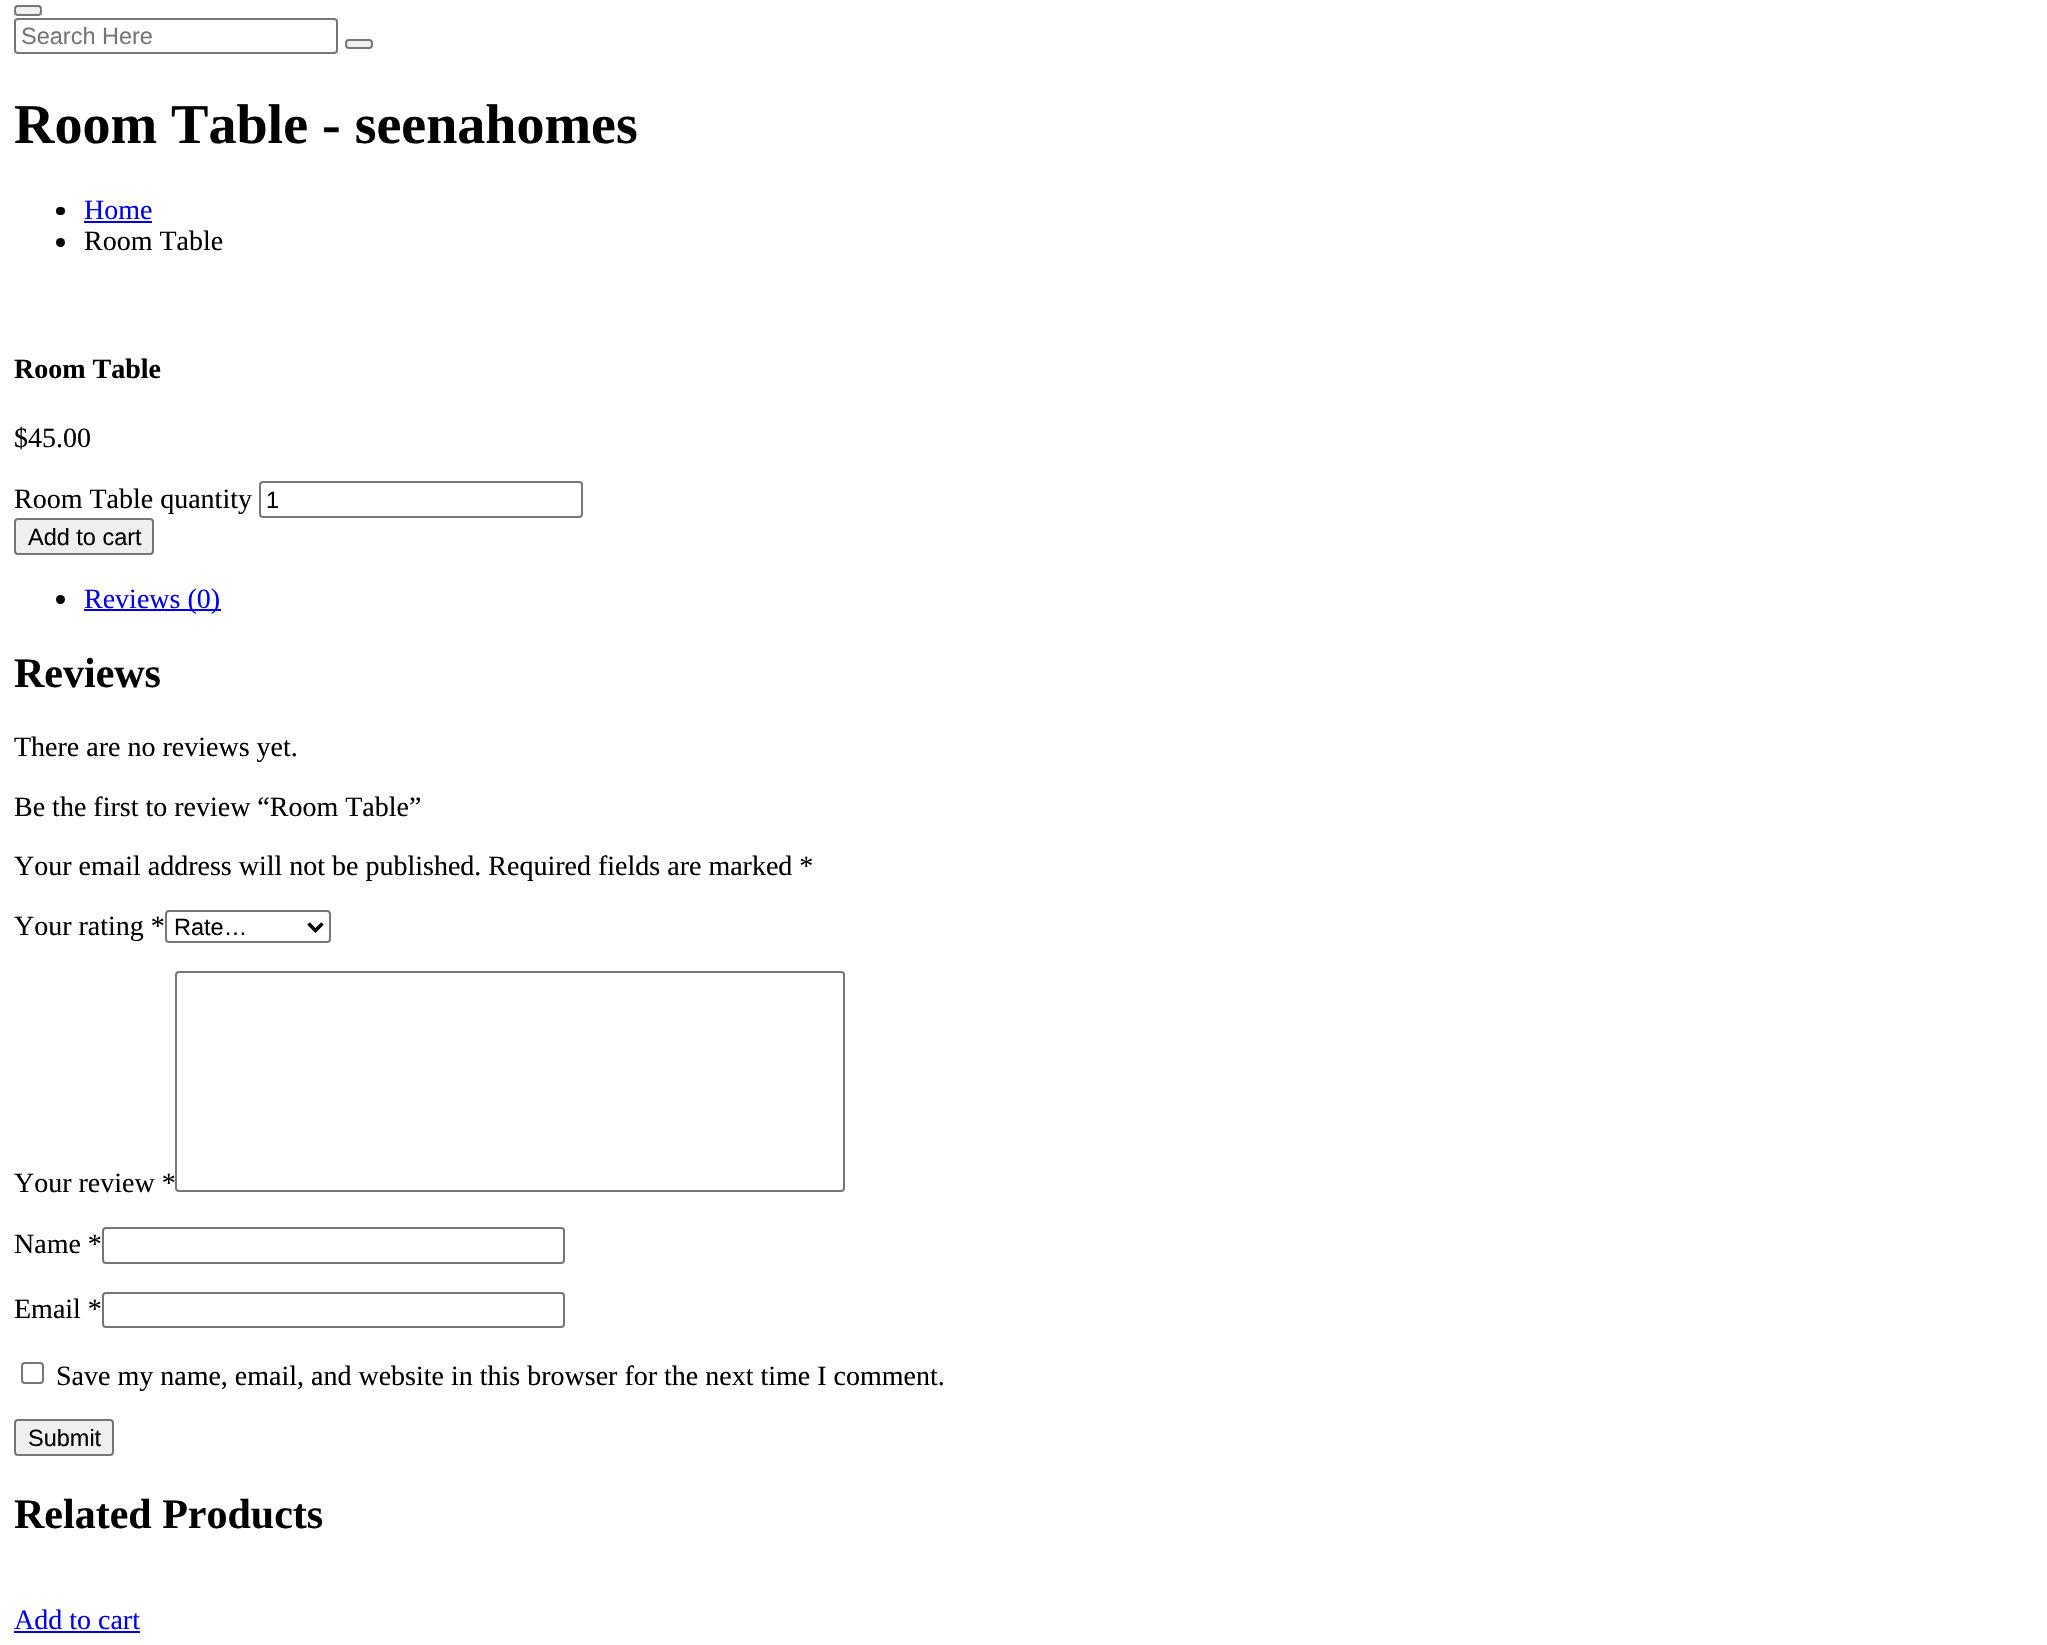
void draw(SkCanvas* canvas) {
	SkPaint paint;
	paint.setAntiAlias(true);
	auto svgPath = [&](const char* data, bool evenOdd = false) {
		SkPath result = *SkParsePath::FromSVGString(data);
		if (evenOdd) result.setFillType(SkPathFillType::kEvenOdd);
		return result;
	};
	canvas->clear(0xffffffff);
	paint.setColor(0xffefefef);
	canvas->drawRoundRect(SkRect::MakeXYWH(15, 6, 26, 9), 3, 3, paint);
	paint.setStroke(true);
	paint.setStrokeWidth(2);
	paint.setColor(0xff767676);
	canvas->drawRoundRect(SkRect::MakeXYWH(15, 6, 26, 9), 3, 3, paint);
	canvas->drawRoundRect(SkRect::MakeXYWH(15, 19, 322, 34), 3, 3, paint);
	SkFont f1(fontMgr->matchFamilyStyle("Liberation Sans", SkFontStyle::Normal()), 23.5);
	f1.setSubpixel(true);
	paint.setStroke(false);
	paint.setColor(0xff757575);
	canvas->drawString("Search Here", 21, 44, f1, paint);
	paint.setColor(0xffefefef);
	canvas->drawRoundRect(SkRect::MakeXYWH(346, 40, 26, 8), 3, 3, paint);
	paint.setStroke(true);
	paint.setColor(0xff767676);
	canvas->drawRoundRect(SkRect::MakeXYWH(346, 40, 26, 8), 3, 3, paint);
	SkFont f2(fontMgr->matchFamilyStyle("Liberation Serif", SkFontStyle::Bold()), 56);
	f2.setSubpixel(true);
	paint.setStroke(false);
	paint.setColor(0xff000000);
	canvas->drawString("Room Table - seenahomes", 14, 143, f2, paint);
	canvas->drawRoundRect(SkRect::MakeXYWH(56, 207, 9, 8), 4, 4, paint);
	SkFont f3(fontMgr->matchFamilyStyle("Liberation Serif", SkFontStyle::Normal()), 28);
	f3.setSubpixel(true);
	paint.setColor(0xff0000ee);
	canvas->drawString("Home", 84, 219, f3, paint);
	canvas->drawRect(SkRect::MakeXYWH(84, 221, 68, 2), paint);
	paint.setColor(0xff000000);
	canvas->drawCircle(60.5, 242.5, 4.5, paint);
	canvas->drawString("Room Table", 84, 250, f3, paint);
	SkFont f4(fontMgr->matchFamilyStyle("Liberation Serif", SkFontStyle::Bold()), 28);
	f4.setSubpixel(true);
	canvas->drawString("Room Table", 14, 378, f4, paint);
	canvas->drawString("$45.00", 14, 447, f3, paint);
	canvas->drawString("Room Table quantity", 14, 508, f3, paint);
	paint.setStroke(true);
	paint.setColor(0xff767676);
	canvas->drawRoundRect(SkRect::MakeXYWH(260, 482, 322, 35), 3, 3, paint);
	paint.setStroke(false);
	paint.setColor(0xff000000);
	canvas->drawString("1", 266, 508, f1, paint);
	paint.setColor(0xffefefef);
	canvas->drawRoundRect(SkRect::MakeXYWH(15, 519, 138, 35), 3, 3, paint);
	paint.setStroke(true);
	paint.setColor(0xff767676);
	canvas->drawRoundRect(SkRect::MakeXYWH(15, 519, 138, 35), 3, 3, paint);
	paint.setStroke(false);
	paint.setColor(0xff000000);
	canvas->drawString("Add to cart", 28, 545, f1, paint);
	canvas->drawCircle(60.5, 599.5, 4.5, paint);
	paint.setColor(0xff0000ee);
	canvas->drawRect(SkRect::MakeXYWH(84, 609, 137, 2), paint);
	canvas->drawString("Reviews (0)", 84, 608, f3, paint);
	SkFont f5(fontMgr->matchFamilyStyle("Liberation Serif", SkFontStyle::Bold()), 42);
	f5.setSubpixel(true);
	paint.setColor(0xff000000);
	canvas->drawString("Reviews", 14, 687, f5, paint);
	canvas->drawString("There are no reviews yet.", 14, 756, f3, paint);
	canvas->drawString("Be the first to review “Room Table”", 14, 816, f3, paint);
	canvas->drawString("Your email address will not be published. Required fields are marked *", 14, 875, f3, paint);
	canvas->drawString("Your rating *", 14, 935, f3, paint);
	paint.setStroke(true);
	paint.setColor(0xff767676);
	canvas->drawRoundRect(SkRect::MakeXYWH(166, 911, 164, 31), 3, 3, paint);
	paint.setStrokeWidth(3.5);
	paint.setColor(0xff000000);
	canvas->drawPath(svgPath("M308.5 923.5L315.5 930.5L322.5 923.5"), paint);
	paint.setStroke(false);
	canvas->drawString("Rate…", 174, 935, f1, paint);
	canvas->drawString("Your review *", 14, 1192, f3, paint);
	paint.setStroke(true);
	paint.setStrokeWidth(2);
	paint.setColor(0xff767676);
	canvas->drawRoundRect(SkRect::MakeXYWH(176, 972, 668, 219), 3, 3, paint);
	paint.setStroke(false);
	paint.setColor(0xff000000);
	canvas->drawString("Name *", 14, 1253, f3, paint);
	paint.setStroke(true);
	paint.setColor(0xff767676);
	canvas->drawRoundRect(SkRect::MakeXYWH(103, 1228, 461, 35), 3, 3, paint);
	paint.setStroke(false);
	paint.setColor(0xff000000);
	canvas->drawString("Email *", 14, 1318, f3, paint);
	paint.setStroke(true);
	paint.setColor(0xff767676);
	canvas->drawRoundRect(SkRect::MakeXYWH(103, 1293, 461, 34), 3, 3, paint);
	canvas->drawRoundRect(SkRect::MakeXYWH(22, 1363, 21, 20), 3, 3, paint);
	paint.setStroke(false);
	paint.setColor(0xff000000);
	canvas->drawString("Save my name, email, and website in this browser for the next time I comment.", 56, 1385, f3, paint);
	paint.setColor(0xffefefef);
	canvas->drawRoundRect(SkRect::MakeXYWH(15, 1420, 98, 35), 3, 3, paint);
	paint.setStroke(true);
	paint.setColor(0xff767676);
	canvas->drawRoundRect(SkRect::MakeXYWH(15, 1420, 98, 35), 3, 3, paint);
	paint.setStroke(false);
	paint.setColor(0xff000000);
	canvas->drawString("Submit", 28, 1446, f1, paint);
	canvas->drawString("Related Products", 14, 1528, f5, paint);
	paint.setColor(0xff0000ee);
	canvas->drawString("Add to cart", 14, 1629, f3, paint);
	canvas->drawRect(SkRect::MakeXYWH(14, 1631, 126, 2), paint);
}
